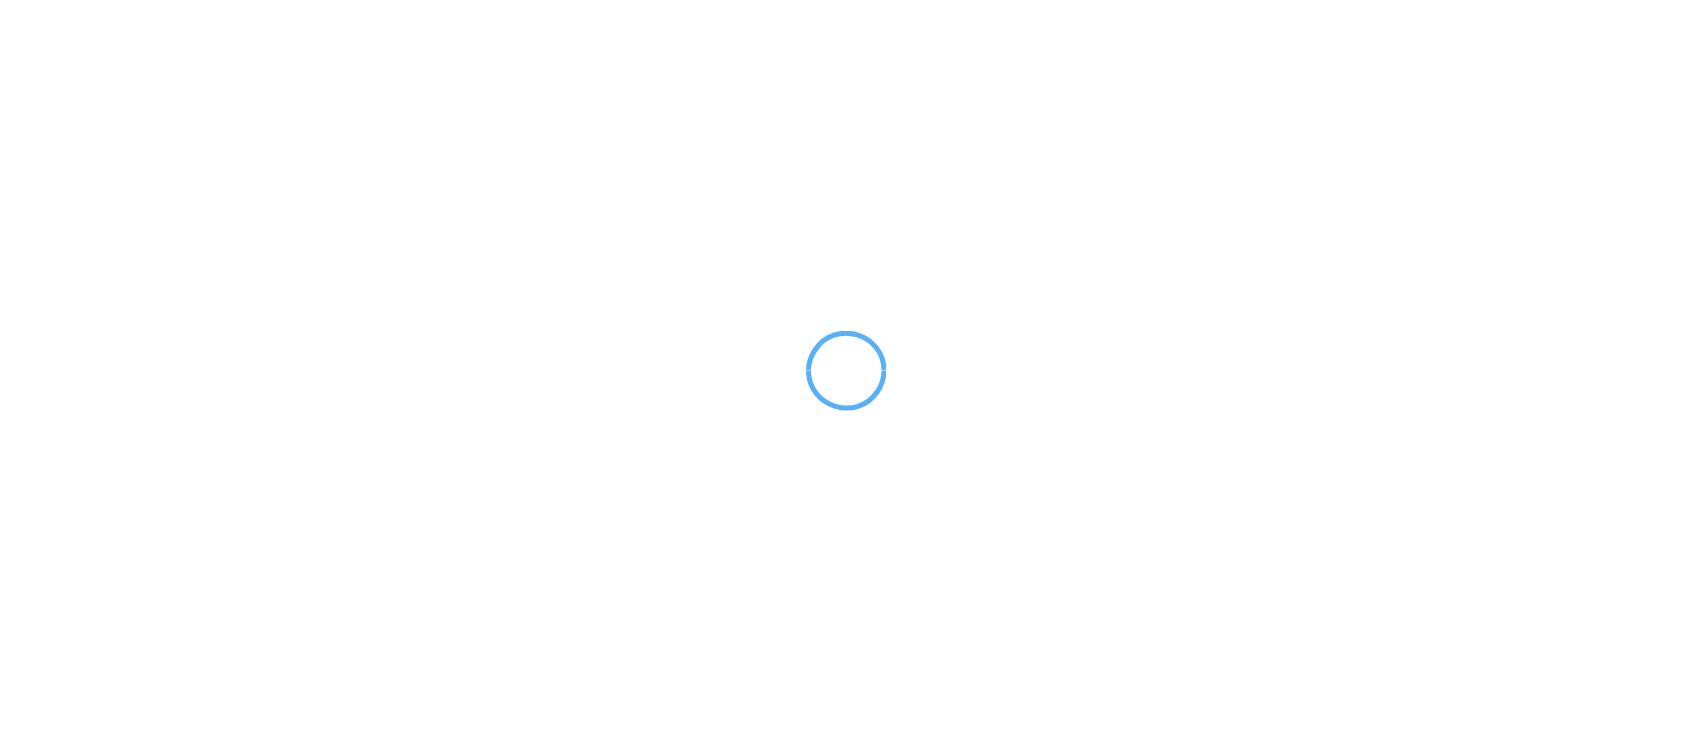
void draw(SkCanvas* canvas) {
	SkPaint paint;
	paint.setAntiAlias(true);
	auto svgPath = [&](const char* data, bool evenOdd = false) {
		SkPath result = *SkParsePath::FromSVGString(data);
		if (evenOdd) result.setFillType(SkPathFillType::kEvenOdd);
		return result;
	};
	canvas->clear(0xffffffff);
	canvas->save();
	canvas->clipRect(SkRect::MakeXYWH(806, 331, 80, 40));
	paint.setStroke(true);
	paint.setStrokeWidth(5);
	paint.setColor(0xff58b0f6);
	canvas->drawPath(svgPath("M808.5 370.5C808.5 363.5 811 356 815 350C835.5 319 884 334 884 370.5"), paint);
	canvas->restore();
	canvas->save();
	canvas->clipRect(SkRect::MakeXYWH(806, 371, 80, 40));
	canvas->drawPath(svgPath("M884 370.5C884 378 881.5 385.5 877.5 391.5C857 422 808.5 407.5 808.5 370.5"), paint);
	canvas->restore();
}
